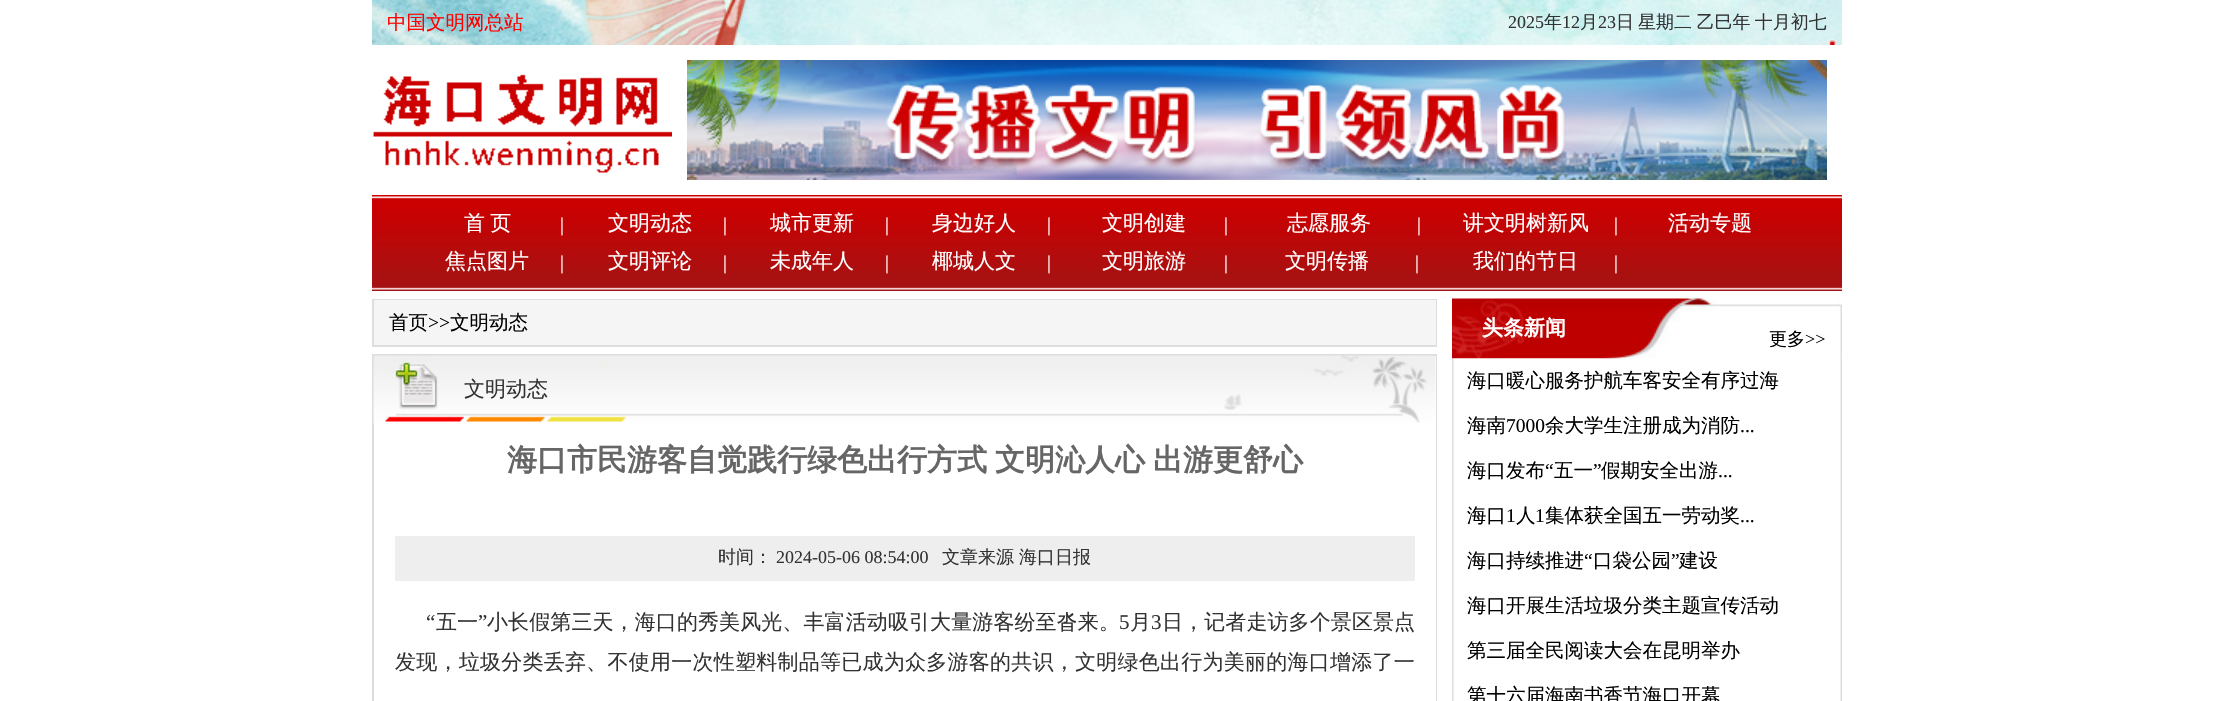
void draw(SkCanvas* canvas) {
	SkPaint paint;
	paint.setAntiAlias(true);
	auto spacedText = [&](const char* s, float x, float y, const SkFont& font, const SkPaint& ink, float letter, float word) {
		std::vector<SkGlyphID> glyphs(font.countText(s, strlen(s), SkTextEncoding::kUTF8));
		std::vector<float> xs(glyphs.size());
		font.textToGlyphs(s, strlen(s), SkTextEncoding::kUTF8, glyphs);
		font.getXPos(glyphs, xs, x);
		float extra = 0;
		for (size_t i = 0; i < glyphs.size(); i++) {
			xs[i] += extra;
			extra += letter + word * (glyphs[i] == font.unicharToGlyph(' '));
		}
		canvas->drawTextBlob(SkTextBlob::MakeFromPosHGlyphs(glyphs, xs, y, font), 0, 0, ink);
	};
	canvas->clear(0xffffffff);
	canvas->drawImageRect(SkImages::DeferredFromEncodedData(SkData::MakeFromFileName("img1.png")), SkRect::MakeXYWH(372, 0, 1470, 45), SkSamplingOptions());
	SkFont f1(fontMgr->matchFamilyStyle("WenQuanYi Zen Hei", SkFontStyle(500, SkFontStyle::kNormal_Width, SkFontStyle::kUpright_Slant)), 19.5);
	f1.setSubpixel(true);
	paint.setColor(0xffff0000);
	canvas->drawString("中国文明网总站", 387, 29, f1, paint);
	SkFont f2(fontMgr->matchFamilyStyle("Liberation Serif", SkFontStyle::Normal()), 18);
	f2.setSubpixel(true);
	paint.setColor(0xff333333);
	canvas->drawString("2025", 1508, 28, f2, paint);
	SkFont f3(fontMgr->matchFamilyStyle("WenQuanYi Zen Hei", SkFontStyle(500, SkFontStyle::kNormal_Width, SkFontStyle::kUpright_Slant)), 18);
	f3.setSubpixel(true);
	canvas->drawString("年", 1544, 28, f3, paint);
	canvas->drawString("12", 1562, 28, f2, paint);
	canvas->drawString("月", 1580, 28, f3, paint);
	canvas->drawString("23", 1598, 28, f2, paint);
	canvas->drawString("日", 1616, 28, f3, paint);
	spacedText("星期二 乙巳年 十月初七", 1638, 28, f3, paint, 0, -1);
	canvas->drawImageRect(SkImages::DeferredFromEncodedData(SkData::MakeFromFileName("img2.png")), SkRect::MakeXYWH(373, 74, 299, 99), SkSamplingOptions());
	canvas->drawImageRect(SkImages::DeferredFromEncodedData(SkData::MakeFromFileName("img3.png")), SkRect::MakeXYWH(687, 60, 1140, 120), SkSamplingOptions());
	canvas->drawImageRect(SkImages::DeferredFromEncodedData(SkData::MakeFromFileName("img4.png")), SkRect::MakeXYWH(372, 195, 1470, 96), SkSamplingOptions());
	SkFont f4(fontMgr->matchFamilyStyle("WenQuanYi Zen Hei", SkFontStyle(500, SkFontStyle::kNormal_Width, SkFontStyle::kUpright_Slant)), 21);
	f4.setSubpixel(true);
	paint.setColor(0xffffffff);
	spacedText("首 页", 464, 230, f4, paint, 0, -1);
	SkFont f5(fontMgr->matchFamilyStyle("Liberation Serif", SkFontStyle::Normal()), 19.5);
	f5.setSubpixel(true);
	canvas->drawString("|", 560, 231, f5, paint);
	canvas->drawString("文明动态", 608, 230, f4, paint);
	canvas->drawString("|", 723, 231, f5, paint);
	canvas->drawString("城市更新", 770, 230, f4, paint);
	canvas->drawString("|", 885, 231, f5, paint);
	canvas->drawString("身边好人", 932, 230, f4, paint);
	canvas->drawString("|", 1047, 231, f5, paint);
	canvas->drawString("文明创建", 1102, 230, f4, paint);
	canvas->drawString("|", 1224, 231, f5, paint);
	canvas->drawString("志愿服务", 1287, 230, f4, paint);
	canvas->drawString("|", 1417, 231, f5, paint);
	canvas->drawString("讲文明树新风", 1463, 230, f4, paint);
	canvas->drawString("|", 1614, 231, f5, paint);
	canvas->drawString("活动专题", 1668, 230, f4, paint);
	canvas->drawString("焦点图片", 445, 268, f4, paint);
	canvas->drawString("|", 560, 269, f5, paint);
	canvas->drawString("文明评论", 608, 268, f4, paint);
	canvas->drawString("|", 723, 269, f5, paint);
	canvas->drawString("未成年人", 770, 268, f4, paint);
	canvas->drawString("|", 885, 269, f5, paint);
	canvas->drawString("椰城人文", 932, 268, f4, paint);
	canvas->drawString("|", 1047, 269, f5, paint);
	canvas->drawString("文明旅游", 1102, 268, f4, paint);
	canvas->drawString("|", 1224, 269, f5, paint);
	canvas->drawString("文明传播", 1285, 268, f4, paint);
	canvas->drawString("|", 1415, 269, f5, paint);
	canvas->drawString("我们的节日", 1473, 268, f4, paint);
	canvas->drawString("|", 1614, 269, f5, paint);
	paint.setColor(0xffdddddd);
	canvas->drawRect(SkRect::MakeXYWH(372, 299, 1065, 48), paint);
	paint.setColor(0xfff5f5f5);
	canvas->drawRect(SkRect::MakeXYWH(374, 300, 1062, 45), paint);
	paint.setColor(0xff000000);
	canvas->drawString("首页", 389, 329, f1, paint);
	canvas->drawString(">>", 428, 329, f5, paint);
	canvas->drawString("文明动态", 450, 329, f1, paint);
	paint.setColor(0xffdddddd);
	canvas->drawRect(SkRect::MakeXYWH(372, 354, 1065, 347), paint);
	paint.setColor(0xffffffff);
	canvas->drawRect(SkRect::MakeXYWH(374, 356, 1062, 345), paint);
	canvas->drawImageRect(SkImages::DeferredFromEncodedData(SkData::MakeFromFileName("img5.png")), SkRect::MakeXYWH(373, 355, 1063, 68), SkSamplingOptions());
	paint.setColor(0xff333333);
	canvas->drawString("文明动态", 464, 396, f4, paint);
	SkFont f6(fontMgr->matchFamilyStyle("WenQuanYi Zen Hei", SkFontStyle::Bold()), 30);
	f6.setSubpixel(true);
	paint.setColor(0xff666666);
	spacedText("海口市民游客自觉践行绿色出行方式 文明沁人心 出游更舒心", 507, 470, f6, paint, 0, -1);
	paint.setColor(0xffeeeeee);
	canvas->drawRect(SkRect::MakeXYWH(395, 536, 1020, 45), paint);
	paint.setColor(0xff333333);
	canvas->drawString("时间：", 718, 563, f3, paint);
	canvas->drawString("2024-05-06 08:54:00", 776, 563, f2, paint);
	canvas->drawString("文章来源", 942, 563, f3, paint);
	canvas->drawString("海口日报", 1019, 563, f3, paint);
	SkFont f7(fontMgr->matchFamilyStyle("Liberation Serif", SkFontStyle::Normal()), 21);
	f7.setSubpixel(true);
	spacedText("“", 426, 629, f7, paint, 0.1, 0);
	spacedText("五一", 436, 629, f4, paint, 0.1, 0);
	spacedText("”", 478, 629, f7, paint, 0.1, 0);
	spacedText("小长假第三天，海口的秀美风光、丰富活动吸引大量游客纷至沓来。", 487, 629, f4, paint, 0.1, 0);
	spacedText("5", 1119, 629, f7, paint, 0.1, 0);
	spacedText("月", 1130, 629, f4, paint, 0.1, 0);
	spacedText("3", 1151, 629, f7, paint, 0.1, 0);
	spacedText("日，记者走访多个景区景点", 1162, 629, f4, paint, 0.1, 0);
	spacedText("发现，垃圾分类丢弃、不使用一次性塑料制品等已成为众多游客的共识，文明绿色出行为美丽的海口增添了一", 395, 669, f4, paint, 0.25, 0);
	canvas->drawImageRect(SkImages::DeferredFromEncodedData(SkData::MakeFromFileName("img6.png")), SkRect::MakeXYWH(1452, 298, 390, 61), SkSamplingOptions());
	SkFont f8(fontMgr->matchFamilyStyle("WenQuanYi Zen Hei", SkFontStyle::Bold()), 21);
	f8.setSubpixel(true);
	paint.setColor(0xffffffff);
	canvas->drawString("头条新闻", 1482, 335, f8, paint);
	paint.setColor(0xff000000);
	canvas->drawString("更多", 1769, 345, f3, paint);
	canvas->drawString(">>", 1805, 345, f2, paint);
	canvas->drawImageRect(SkImages::DeferredFromEncodedData(SkData::MakeFromFileName("img7.png")), SkRect::MakeXYWH(1452, 358, 390, 343), SkSamplingOptions());
	canvas->drawString("海口暖心服务护航车客安全有序过海", 1467, 387, f1, paint);
	canvas->drawString("海南", 1467, 432, f1, paint);
	canvas->drawString("7000", 1506, 432, f5, paint);
	canvas->drawString("余大学生注册成为消防", 1545, 432, f1, paint);
	canvas->drawString("...", 1740, 432, f5, paint);
	canvas->drawString("海口发布", 1467, 477, f1, paint);
	canvas->drawString("“", 1545, 477, f5, paint);
	canvas->drawString("五一", 1554, 477, f1, paint);
	canvas->drawString("”", 1593, 477, f5, paint);
	canvas->drawString("假期安全出游", 1601, 477, f1, paint);
	canvas->drawString("...", 1718, 477, f5, paint);
	canvas->drawString("海口", 1467, 522, f1, paint);
	canvas->drawString("1", 1506, 522, f5, paint);
	canvas->drawString("人", 1516, 522, f1, paint);
	canvas->drawString("1", 1535, 522, f5, paint);
	canvas->drawString("集体获全国五一劳动奖", 1545, 522, f1, paint);
	canvas->drawString("...", 1740, 522, f5, paint);
	canvas->drawString("海口持续推进", 1467, 567, f1, paint);
	canvas->drawString("“", 1584, 567, f5, paint);
	canvas->drawString("口袋公园", 1593, 567, f1, paint);
	canvas->drawString("”", 1671, 567, f5, paint);
	canvas->drawString("建设", 1679, 567, f1, paint);
	canvas->drawString("海口开展生活垃圾分类主题宣传活动", 1467, 612, f1, paint);
	canvas->drawString("第三届全民阅读大会在昆明举办", 1467, 657, f1, paint);
	canvas->drawString("第十六届海南书香节海口开幕", 1467, 702, f1, paint);
}
